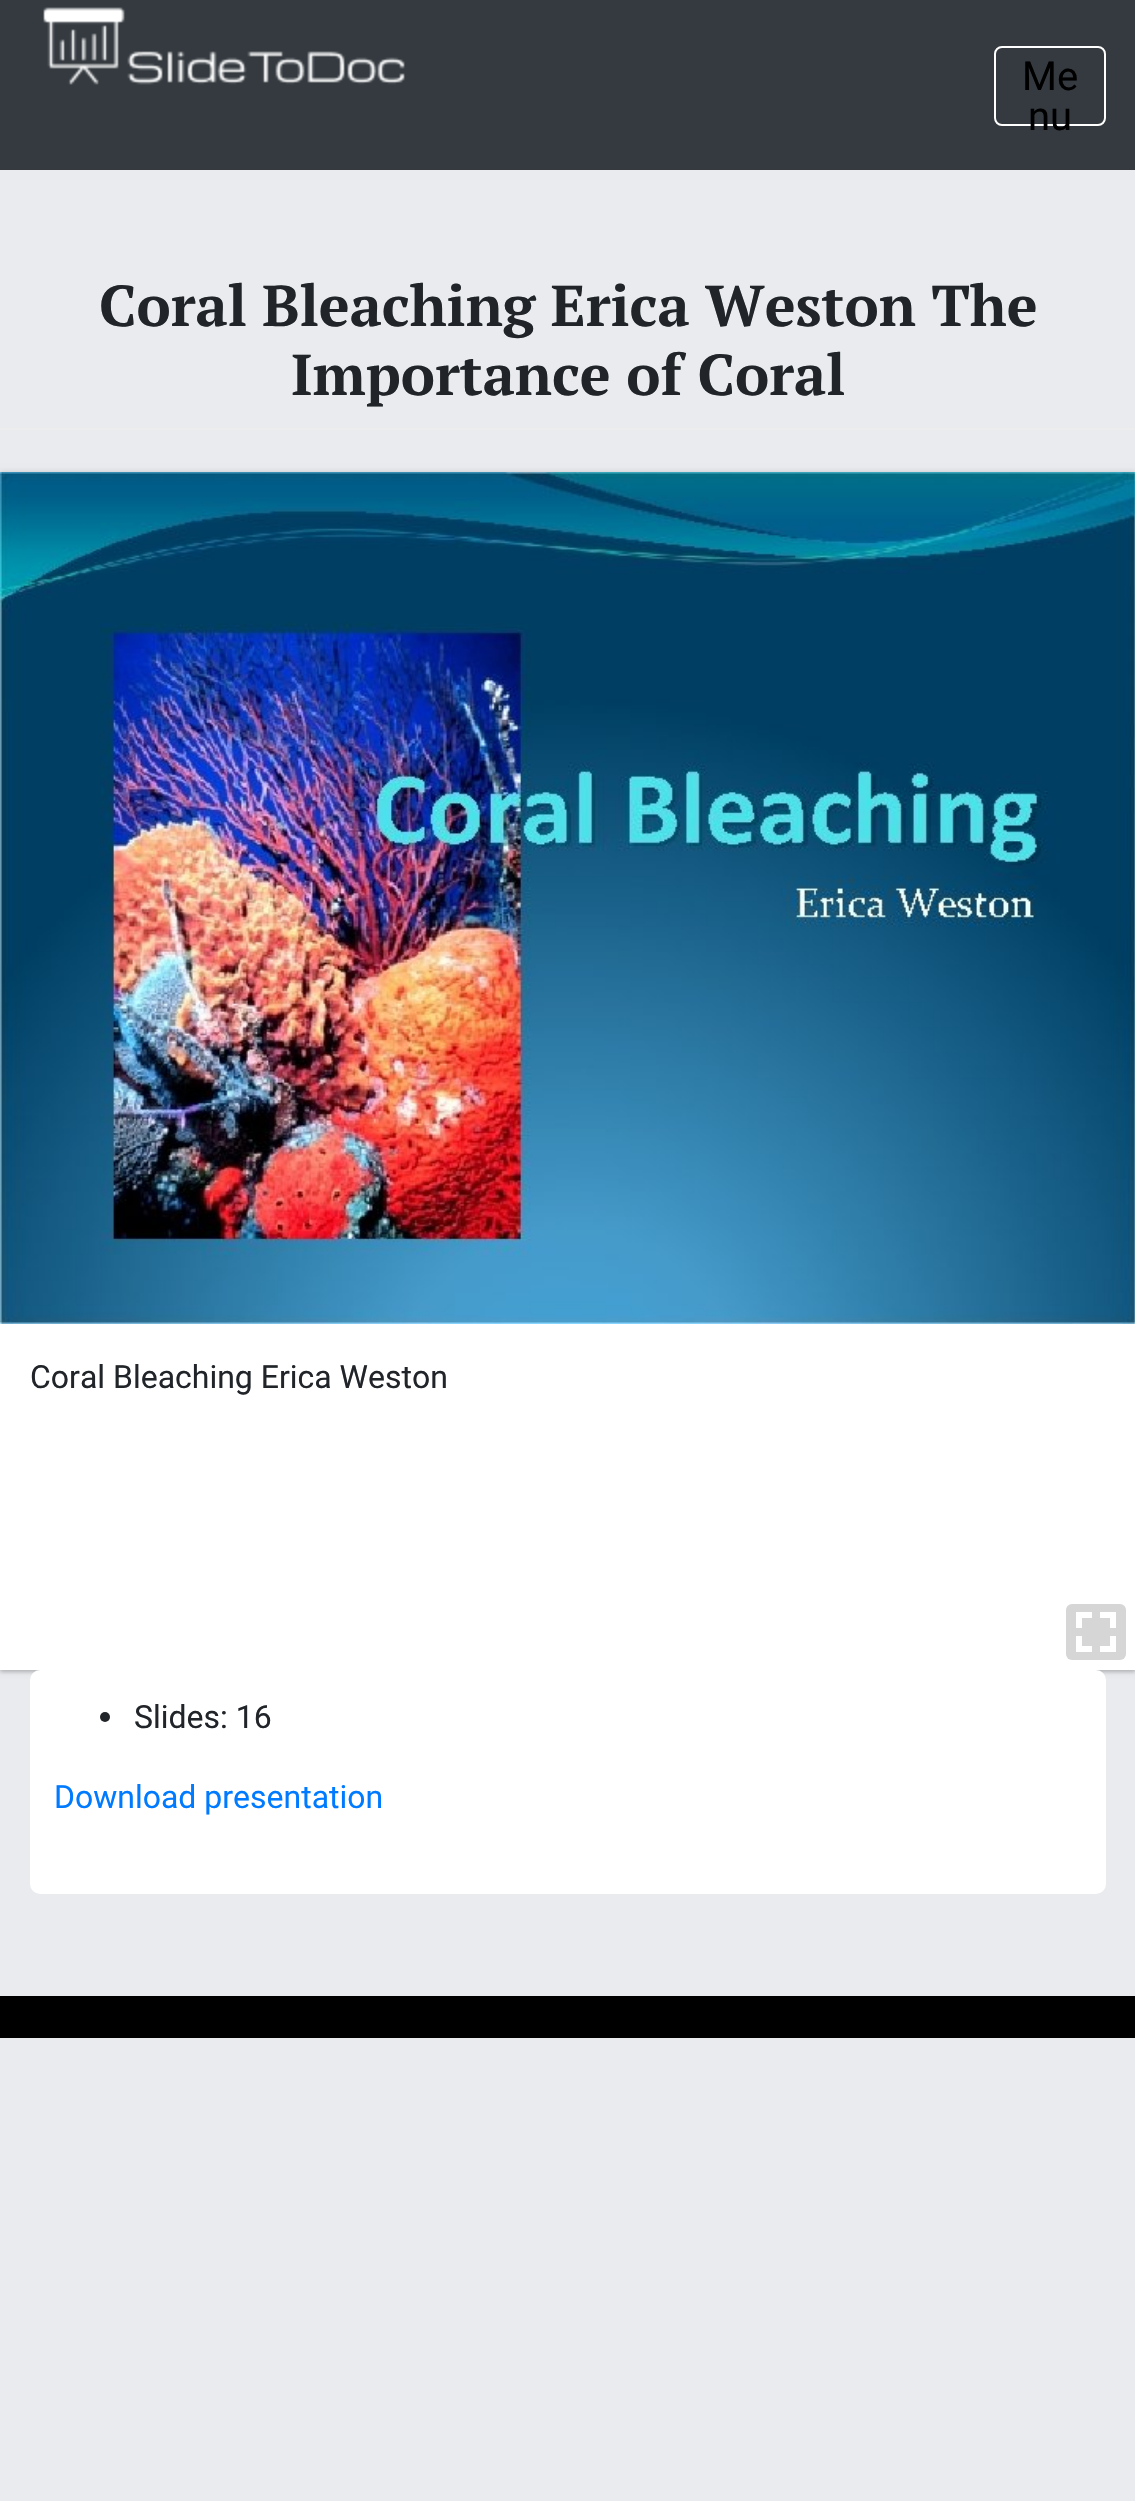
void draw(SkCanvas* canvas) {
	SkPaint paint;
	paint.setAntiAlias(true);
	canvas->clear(0xffe9ebee);
	paint.setColor(0xff343a40);
	canvas->drawRect(SkRect::MakeXYWH(0, 0, 1135, 170), paint);
	canvas->drawImageRect(SkImages::DeferredFromEncodedData(SkData::MakeFromFileName("img1.png")), SkRect::MakeXYWH(43, 7, 362, 78), SkSamplingOptions());
	paint.setStroke(true);
	paint.setStrokeWidth(2);
	paint.setColor(0xffffffff);
	canvas->drawRoundRect(SkRect::MakeXYWH(995, 47, 110, 78), 7, 7, paint);
	SkFont f1(fontMgr->matchFamilyStyle("Roboto", SkFontStyle::Normal()), 40);
	f1.setSubpixel(true);
	paint.setStroke(false);
	paint.setColor(0xff000000);
	canvas->drawString("Me", 1022, 90, f1, paint);
	canvas->drawString("nu", 1028, 130, f1, paint);
	paint.setColor(0xffededed);
	canvas->drawRect(SkRect::MakeXYWH(0, 428, 1135, 2), paint);
	SkFont f2(fontMgr->matchFamilyStyle("PT Serif", SkFontStyle::Bold()), 57.6);
	f2.setSubpixel(true);
	paint.setColor(0xff212529);
	canvas->drawString("Coral Bleaching Erica Weston The", 99, 326, f2, paint);
	canvas->drawString("Importance of Coral", 291, 395, f2, paint);
	paint.setColor(0x1a000000);
	paint.setMaskFilter(SkMaskFilter::MakeBlur(kNormal_SkBlurStyle, 3));
	canvas->drawRect(SkRect::MakeXYWH(0, 472, 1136, 1198), paint);
	paint.setMaskFilter(nullptr);
	paint.setColor(0x33000000);
	paint.setMaskFilter(SkMaskFilter::MakeBlur(kNormal_SkBlurStyle, 2));
	canvas->drawRect(SkRect::MakeXYWH(0, 474, 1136, 1198), paint);
	paint.setMaskFilter(nullptr);
	paint.setColor(0xffffffff);
	canvas->drawRect(SkRect::MakeXYWH(0, 1324, 1135, 346), paint);
	canvas->drawImageRect(SkImages::DeferredFromEncodedData(SkData::MakeFromFileName("img2.png")), SkRect::MakeXYWH(0, 472, 1135, 852), SkSamplingOptions());
	SkFont f3(fontMgr->matchFamilyStyle("Roboto", SkFontStyle::Normal()), 32);
	f3.setSubpixel(true);
	paint.setColor(0xff212529);
	canvas->drawString("Coral Bleaching Erica Weston", 30, 1388, f3, paint);
	paint.setColor(0xffd6d6d6);
	canvas->drawRoundRect(SkRect::MakeXYWH(1066, 1604, 60, 56), 6, 6, paint);
	canvas->drawImageRect(SkImages::DeferredFromEncodedData(SkData::MakeFromFileName("img3.png")), SkRect::MakeXYWH(1076, 1612, 40, 40), SkSamplingOptions());
	paint.setColor(0xffffffff);
	canvas->drawRoundRect(SkRect::MakeXYWH(30, 1670, 1076, 224), 10, 10, paint);
	paint.setColor(0xff212529);
	canvas->drawCircle(105, 1717, 5, paint);
	canvas->drawString("Slides: 16", 134, 1728, f3, paint);
	paint.setColor(0xff007bff);
	canvas->drawString("Download presentation", 54, 1808, f3, paint);
	paint.setColor(0xff000000);
	canvas->drawRect(SkRect::MakeXYWH(0, 1996, 1135, 42), paint);
}
